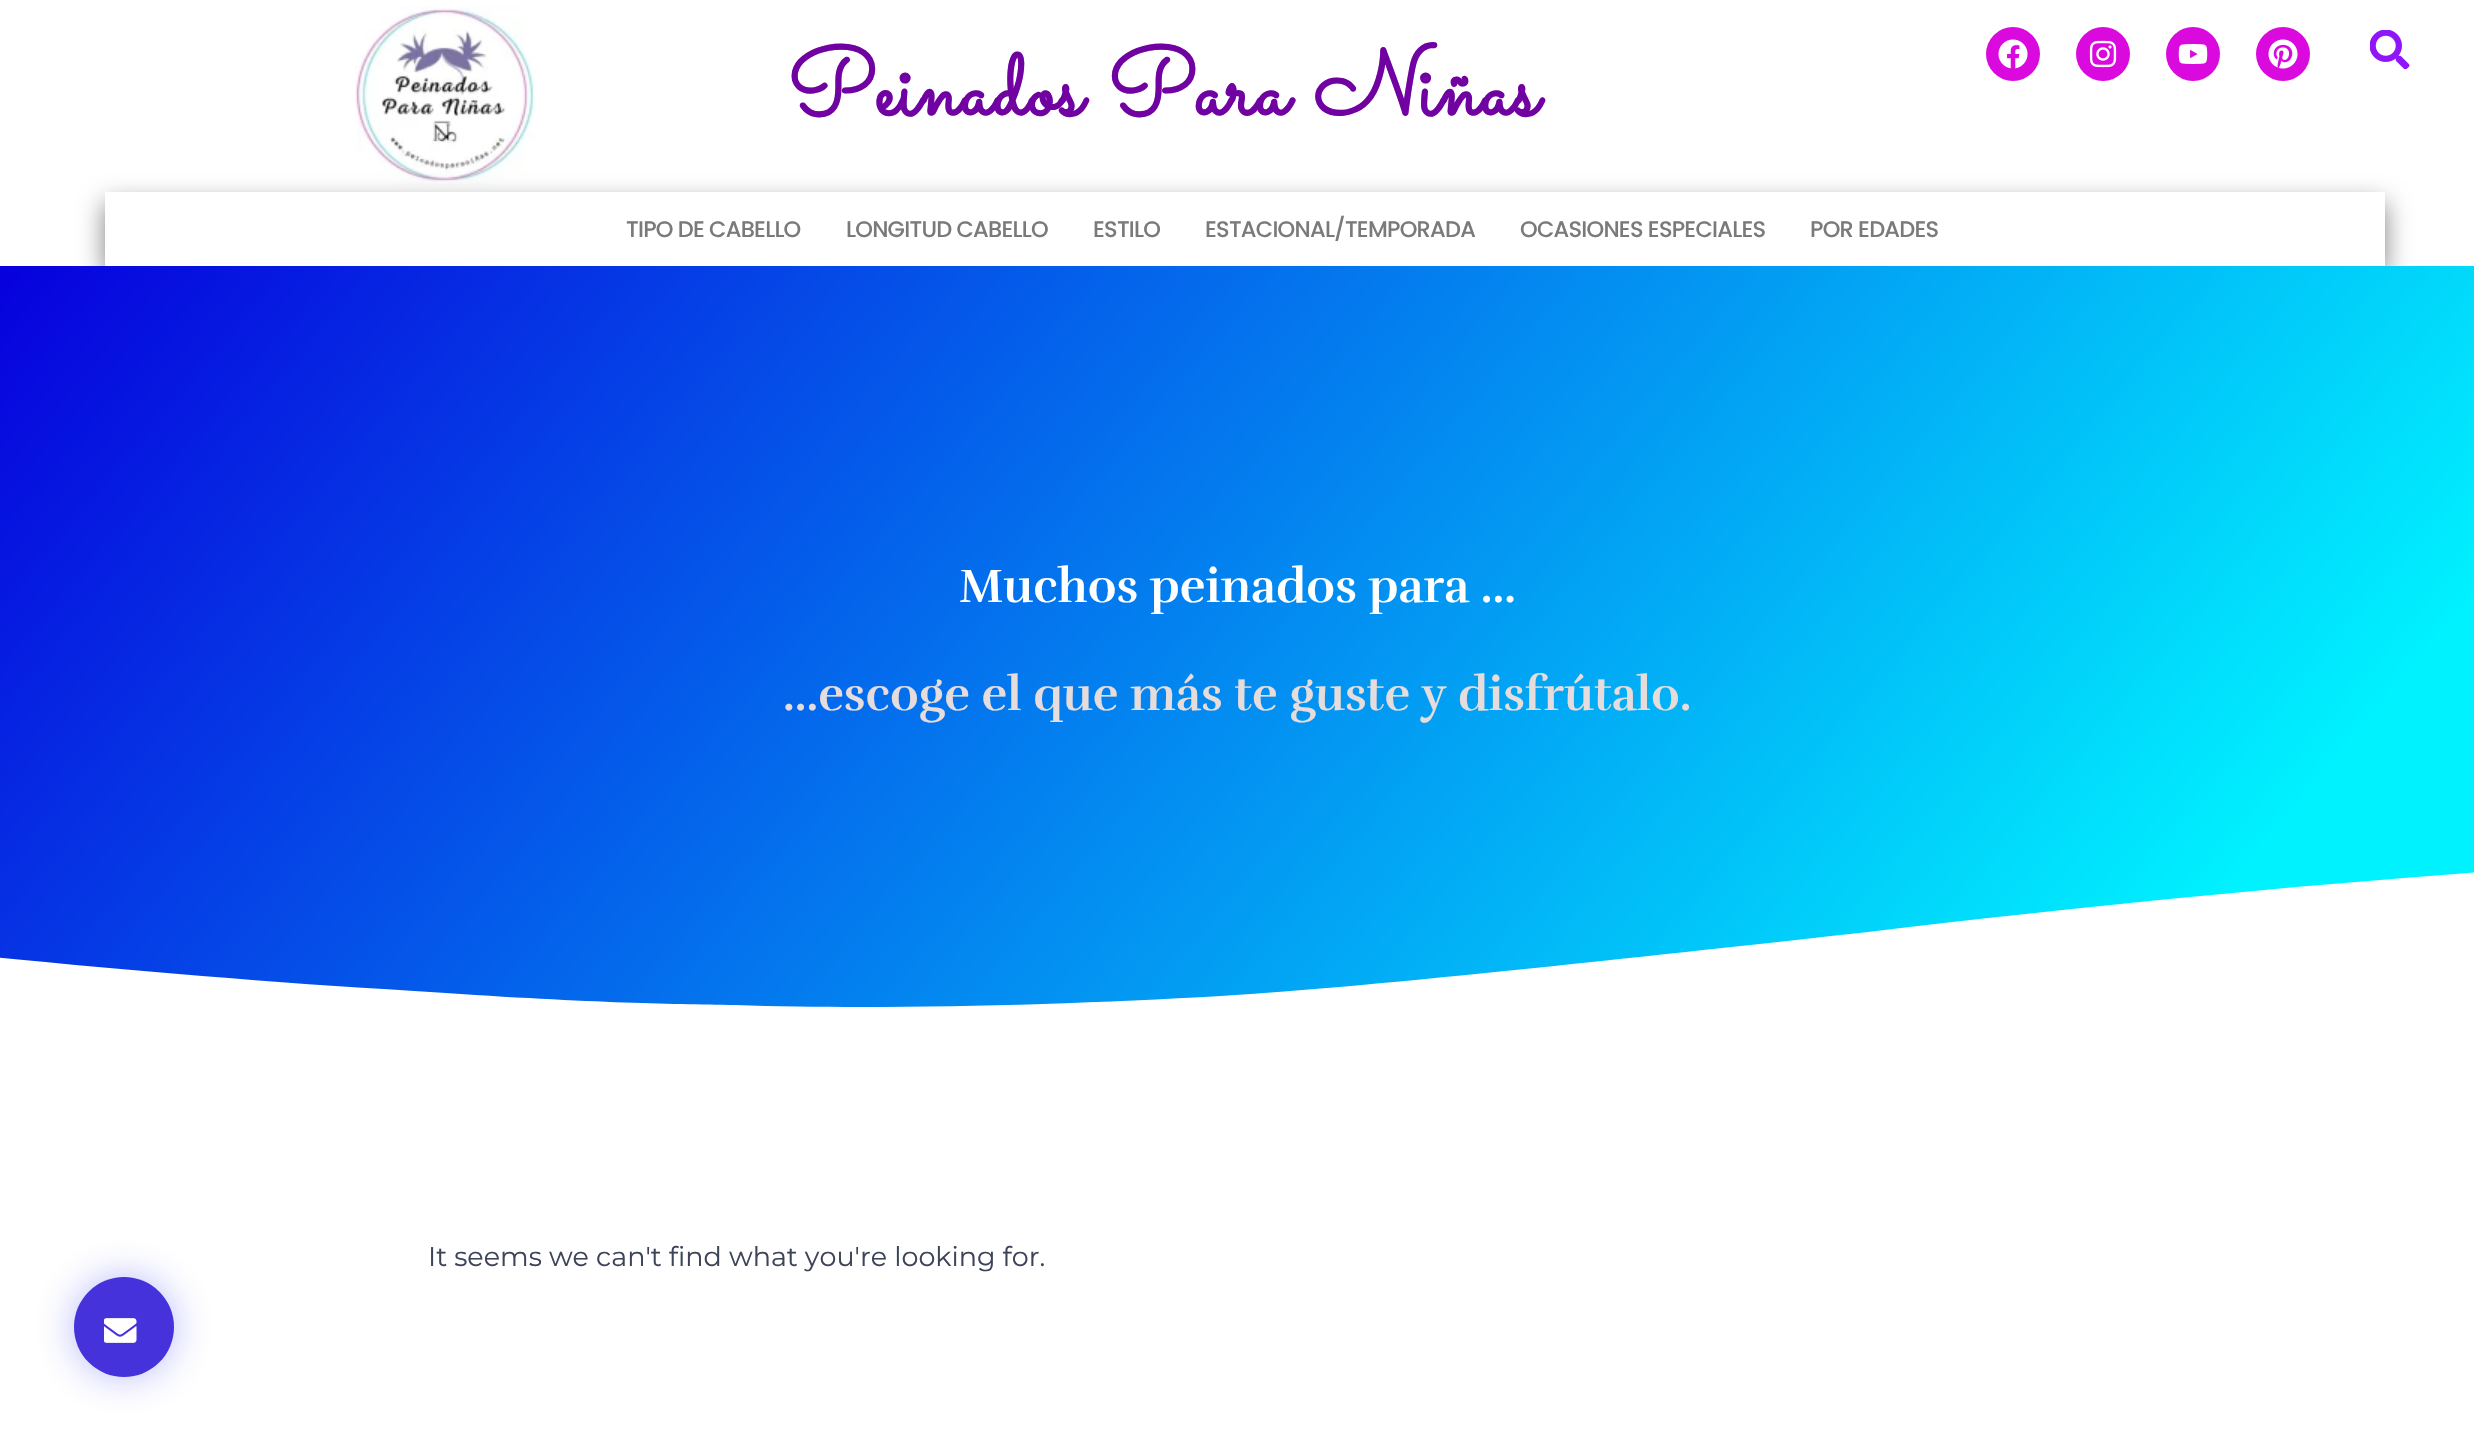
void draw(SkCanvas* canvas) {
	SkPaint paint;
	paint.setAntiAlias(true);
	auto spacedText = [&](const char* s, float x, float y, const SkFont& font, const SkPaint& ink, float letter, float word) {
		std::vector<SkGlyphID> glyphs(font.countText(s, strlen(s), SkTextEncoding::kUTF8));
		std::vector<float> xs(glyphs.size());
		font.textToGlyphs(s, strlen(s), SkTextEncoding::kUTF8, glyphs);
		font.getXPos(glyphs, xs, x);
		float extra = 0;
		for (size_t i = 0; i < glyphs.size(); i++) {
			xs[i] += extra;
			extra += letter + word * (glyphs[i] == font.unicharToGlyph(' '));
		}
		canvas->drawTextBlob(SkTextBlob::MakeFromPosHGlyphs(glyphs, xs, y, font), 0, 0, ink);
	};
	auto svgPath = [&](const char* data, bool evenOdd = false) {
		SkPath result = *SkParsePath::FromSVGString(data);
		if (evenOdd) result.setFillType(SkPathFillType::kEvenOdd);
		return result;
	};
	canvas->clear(0xffffffff);
	canvas->drawImageRect(SkImages::DeferredFromEncodedData(SkData::MakeFromFileName("img1.png")), SkRect::MakeXYWH(355, 6, 181, 180), SkSamplingOptions());
	SkFont f1(fontMgr->matchFamilyStyle("Sacramento", SkFontStyle::Bold()), 93);
	f1.setSubpixel(true);
	paint.setColor(0xff7102a2);
	spacedText("Peinados Para Niñas", 787, 115, f1, paint, 0.6, 4);
	paint.setColor(0xffda0ade);
	canvas->drawCircle(2013, 54, 27, paint);
	canvas->drawImageRect(SkImages::DeferredFromEncodedData(SkData::MakeFromFileName("img2.png")), SkRect::MakeXYWH(1998, 39, 30, 30), SkSamplingOptions());
	canvas->drawCircle(2103, 54, 27, paint);
	canvas->drawImageRect(SkImages::DeferredFromEncodedData(SkData::MakeFromFileName("img3.png")), SkRect::MakeXYWH(2089, 40, 28, 28), SkSamplingOptions());
	canvas->drawCircle(2193, 54, 27, paint);
	canvas->drawImageRect(SkImages::DeferredFromEncodedData(SkData::MakeFromFileName("img4.png")), SkRect::MakeXYWH(2178, 44, 30, 20), SkSamplingOptions());
	canvas->drawCircle(2283, 54, 27, paint);
	canvas->drawImageRect(SkImages::DeferredFromEncodedData(SkData::MakeFromFileName("img5.png")), SkRect::MakeXYWH(2268, 39, 30, 30), SkSamplingOptions());
	canvas->drawImageRect(SkImages::DeferredFromEncodedData(SkData::MakeFromFileName("img6.png")), SkRect::MakeXYWH(2370, 30, 40, 39), SkSamplingOptions());
	paint.setColor(0x80000000);
	paint.setMaskFilter(SkMaskFilter::MakeBlur(kNormal_SkBlurStyle, 13));
	canvas->drawRect(SkRect::MakeXYWH(105, 203, 2280, 73), paint);
	paint.setMaskFilter(nullptr);
	paint.setColor(0xffffffff);
	canvas->drawRect(SkRect::MakeXYWH(105, 192, 2280, 74), paint);
	SkFont f2(fontMgr->matchFamilyStyle("Poppins", SkFontStyle(500, SkFontStyle::kNormal_Width, SkFontStyle::kUpright_Slant)), 22.5);
	f2.setSubpixel(true);
	paint.setColor(0xff7a7a7a);
	spacedText("TIPO DE CABELLO", 626, 237, f2, paint, -0.75, 0);
	spacedText("LONGITUD CABELLO", 846, 237, f2, paint, -0.75, 0);
	spacedText("ESTILO", 1093, 237, f2, paint, -0.75, 0);
	spacedText("ESTACIONAL/TEMPORADA", 1205, 237, f2, paint, -0.75, 0);
	spacedText("OCASIONES ESPECIALES", 1520, 237, f2, paint, -0.75, 0);
	spacedText("POR EDADES", 1810, 237, f2, paint, -0.75, 0);
	{
		const SkColor colors[] = {0xff0700dd, 0xff00f2ff};
		const float stops[] = {0, 0.89};
		const SkPoint ends[] = {{327, -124}, {2148, 1405}};
		paint.setShader(SkGradientShader::MakeLinear(ends, colors, stops, 2, SkTileMode::kClamp));
		paint.setAlpha(255);
	}
	canvas->drawRect(SkRect::MakeXYWH(0, 266, 2474, 741), paint);
	SkFont f3(fontMgr->matchFamilyStyle("Rufina", SkFontStyle::Bold()), 48);
	f3.setSubpixel(true);
	paint.setShader(nullptr);
	paint.setColor(0xffffffff);
	canvas->drawString("Muchos peinados para ...", 959, 602, f3, paint);
	paint.setColor(0xffe6dcdc);
	canvas->drawString("...escoge el que más te guste y disfrútalo.", 783, 710, f3, paint);
	paint.setColor(0x593538f0);
	paint.setMaskFilter(SkMaskFilter::MakeBlur(kNormal_SkBlurStyle, 19));
	canvas->drawRoundRect(SkRect::MakeXYWH(74, 1277, 100, 100), 50, 50, paint);
	paint.setMaskFilter(nullptr);
	paint.setColor(0xff4632da);
	canvas->drawCircle(124, 1327, 50, paint);
	canvas->drawImageRect(SkImages::DeferredFromEncodedData(SkData::MakeFromFileName("img7.png")), SkRect::MakeXYWH(104, 1318, 33, 25), SkSamplingOptions());
	paint.setColor(0xffffffff);
	canvas->drawPath(svgPath("M735 1005C880 1010 1066 1005 1221 996C1373 987 1677 953 1868 932C2356 874 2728 851 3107 842C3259 838 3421 836 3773 847C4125 857 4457 893 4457 893V1017H-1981V962C-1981 962-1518 904-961 908C-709 909-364 920-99 948C38 962 237 981 414 991C589 1003 668 1004 735 1005Z"), paint);
	SkFont f4(fontMgr->matchFamilyStyle("Montserrat", SkFontStyle::Normal()), 27);
	f4.setSubpixel(true);
	paint.setColor(0xff3d4459);
	canvas->drawString("It seems we can't find what you're looking for.", 428, 1266, f4, paint);
}
